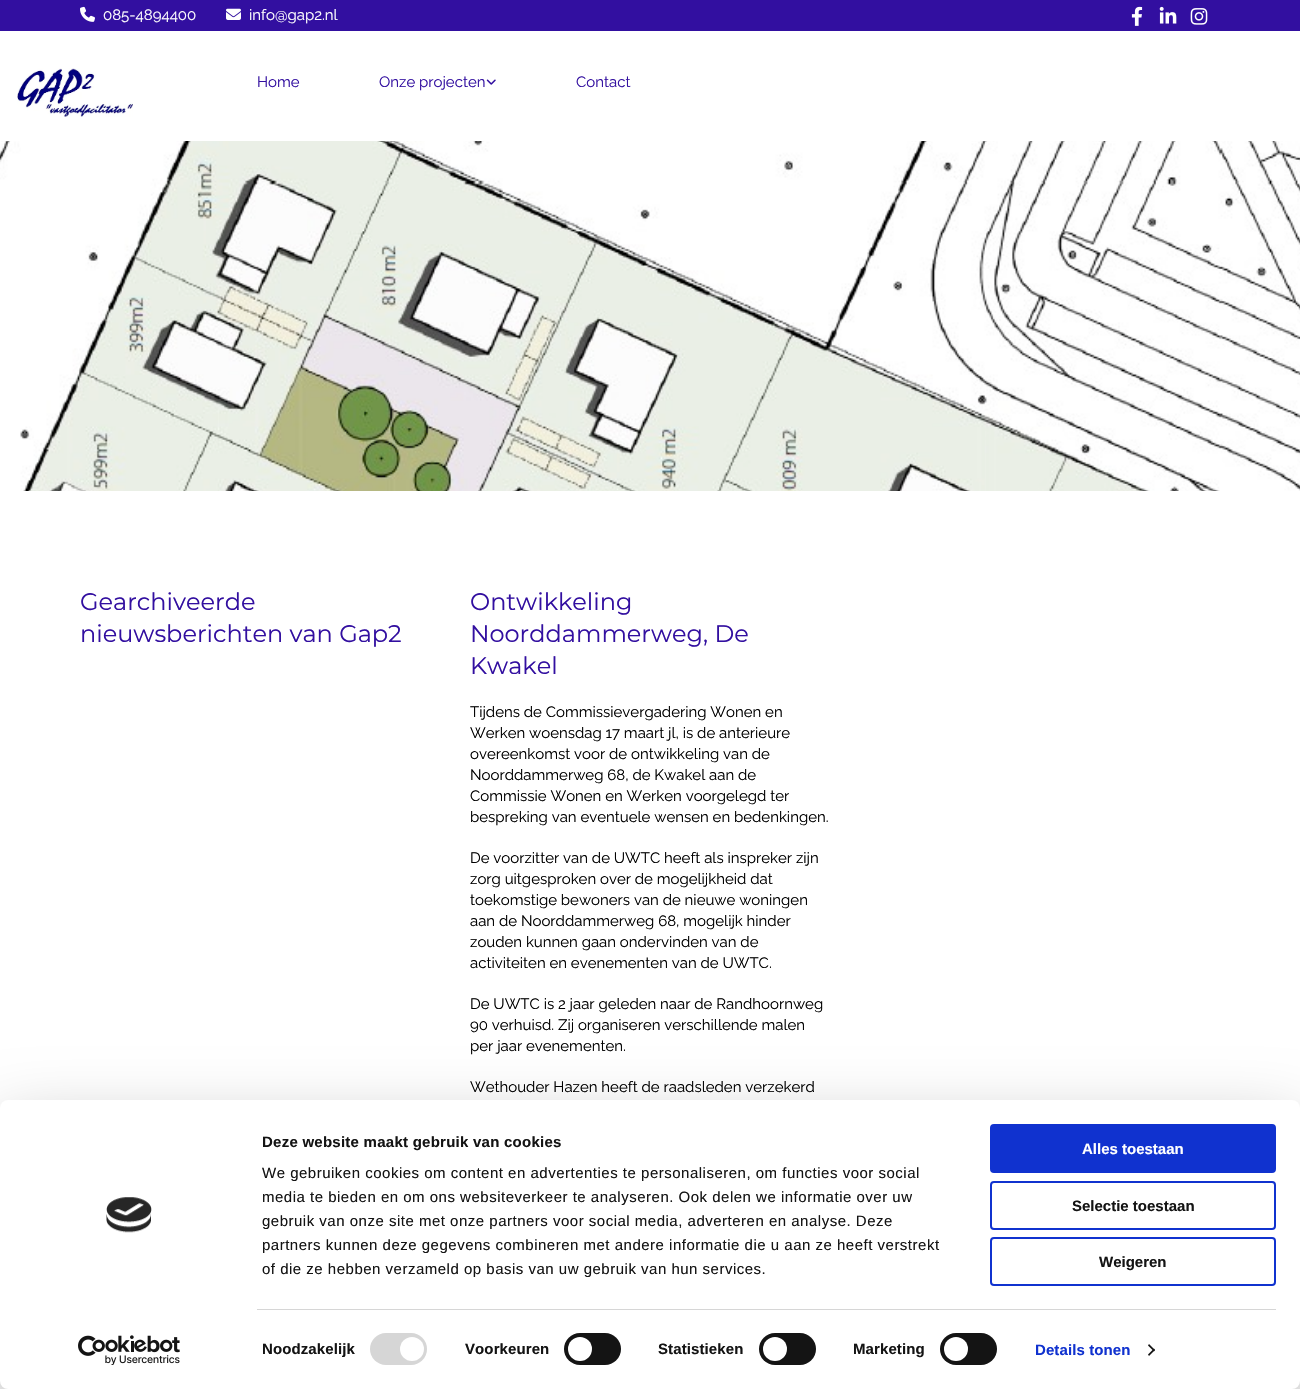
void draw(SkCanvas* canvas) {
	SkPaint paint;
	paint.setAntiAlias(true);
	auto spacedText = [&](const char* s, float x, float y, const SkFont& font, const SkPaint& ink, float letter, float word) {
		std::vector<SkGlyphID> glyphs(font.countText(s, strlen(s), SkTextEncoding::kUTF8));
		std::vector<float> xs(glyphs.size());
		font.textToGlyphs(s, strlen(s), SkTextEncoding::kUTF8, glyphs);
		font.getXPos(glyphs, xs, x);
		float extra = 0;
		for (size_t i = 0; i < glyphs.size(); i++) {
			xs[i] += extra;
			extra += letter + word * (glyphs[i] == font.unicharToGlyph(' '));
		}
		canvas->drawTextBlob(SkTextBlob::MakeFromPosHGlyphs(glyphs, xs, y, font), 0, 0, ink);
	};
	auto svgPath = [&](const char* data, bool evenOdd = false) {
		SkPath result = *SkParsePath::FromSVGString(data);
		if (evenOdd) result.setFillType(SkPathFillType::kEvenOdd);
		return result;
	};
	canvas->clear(0xffffffff);
	paint.setColor(0xff320fa0);
	canvas->drawRect(SkRect::MakeXYWH(0, 0, 1300, 31), paint);
	canvas->drawImageRect(SkImages::DeferredFromEncodedData(SkData::MakeFromFileName("img1.png")), SkRect::MakeXYWH(80, 6, 15, 16), SkSamplingOptions());
	SkFont f1(fontMgr->matchFamilyStyle("Raleway", SkFontStyle::Normal()), 15);
	f1.setSubpixel(true);
	paint.setColor(0xffffffff);
	canvas->drawString("085-4894400", 103, 20, f1, paint);
	canvas->drawImageRect(SkImages::DeferredFromEncodedData(SkData::MakeFromFileName("img2.png")), SkRect::MakeXYWH(226, 8, 15, 12), SkSamplingOptions());
	canvas->drawString("info@gap2.nl", 249, 20, f1, paint);
	canvas->drawImageRect(SkImages::DeferredFromEncodedData(SkData::MakeFromFileName("img3.png")), SkRect::MakeXYWH(1131, 6, 12, 20), SkSamplingOptions());
	canvas->drawImageRect(SkImages::DeferredFromEncodedData(SkData::MakeFromFileName("img4.png")), SkRect::MakeXYWH(1159, 6, 18, 18), SkSamplingOptions());
	canvas->drawImageRect(SkImages::DeferredFromEncodedData(SkData::MakeFromFileName("img5.png")), SkRect::MakeXYWH(1190, 8, 18, 17), SkSamplingOptions());
	canvas->drawImageRect(SkImages::DeferredFromEncodedData(SkData::MakeFromFileName("img6.png")), SkRect::MakeXYWH(17, 68, 116, 49), SkSamplingOptions());
	paint.setColor(0xff320fa0);
	canvas->drawString("Home", 257, 87, f1, paint);
	canvas->drawString("Onze projecten", 379, 87, f1, paint);
	canvas->drawImageRect(SkImages::DeferredFromEncodedData(SkData::MakeFromFileName("img7.png")), SkRect::MakeXYWH(486, 79, 10, 6), SkSamplingOptions());
	canvas->drawString("Contact", 576, 87, f1, paint);
	canvas->drawImageRect(SkImages::DeferredFromEncodedData(SkData::MakeFromFileName("img8.png")), SkRect::MakeXYWH(0, 141, 1300, 350), SkSamplingOptions());
	SkFont f2(fontMgr->matchFamilyStyle("Montserrat", SkFontStyle::Normal()), 24);
	f2.setSubpixel(true);
	canvas->drawString("Gearchiveerde", 80, 610, f2, paint);
	canvas->drawString("nieuwsberichten van Gap2", 80, 642, f2, paint);
	canvas->drawString("Ontwikkeling", 470, 610, f2, paint);
	canvas->drawString("Noorddammerweg, De", 470, 642, f2, paint);
	canvas->drawString("Kwakel", 470, 674, f2, paint);
	paint.setColor(0xff000000);
	canvas->drawString("Tijdens de Commissievergadering Wonen en", 470, 717, f1, paint);
	canvas->drawString("Werken woensdag 17 maart jl, is de anterieure", 470, 738, f1, paint);
	canvas->drawString("overeenkomst voor de ontwikkeling van de", 470, 759, f1, paint);
	canvas->drawString("Noorddammerweg 68, de Kwakel aan de", 470, 780, f1, paint);
	canvas->drawString("Commissie Wonen en Werken voorgelegd ter", 470, 801, f1, paint);
	canvas->drawString("bespreking van eventuele wensen en bedenkingen.", 470, 822, f1, paint);
	canvas->drawString("De voorzitter van de UWTC heeft als inspreker zijn", 470, 863, f1, paint);
	canvas->drawString("zorg uitgesproken over de mogelijkheid dat", 470, 884, f1, paint);
	canvas->drawString("toekomstige bewoners van de nieuwe woningen", 470, 905, f1, paint);
	canvas->drawString("aan de Noorddammerweg 68, mogelijk hinder", 470, 926, f1, paint);
	canvas->drawString("zouden kunnen gaan ondervinden van de", 470, 947, f1, paint);
	canvas->drawString("activiteiten en evenementen van de UWTC.", 470, 968, f1, paint);
	canvas->drawString("De UWTC is 2 jaar geleden naar de Randhoornweg", 470, 1009, f1, paint);
	canvas->drawString("90 verhuisd. Zij organiseren verschillende malen", 470, 1030, f1, paint);
	canvas->drawString("per jaar evenementen.", 470, 1051, f1, paint);
	canvas->drawString("Wethouder Hazen heeft de raadsleden verzekerd", 470, 1092, f1, paint);
	paint.setColor(0x4d000000);
	paint.setMaskFilter(SkMaskFilter::MakeBlur(kNormal_SkBlurStyle, 35));
	canvas->drawRoundRect(SkRect::MakeXYWH(0, 1130, 1300, 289), 8, 8, paint);
	paint.setMaskFilter(nullptr);
	paint.setColor(0xffffffff);
	canvas->drawRoundRect(SkRect::MakeXYWH(0, 1100, 1300, 289), 8, 8, paint);
	canvas->drawImageRect(SkImages::DeferredFromEncodedData(SkData::MakeFromFileName("img9.png")), SkRect::MakeXYWH(106, 1197, 46, 36), SkSamplingOptions());
	canvas->drawImageRect(SkImages::DeferredFromEncodedData(SkData::MakeFromFileName("img10.png")), SkRect::MakeXYWH(78, 1335, 102, 30), SkSamplingOptions());
	SkFont f3(fontMgr->matchFamilyStyle("Liberation Sans", SkFontStyle::Bold()), 15);
	f3.setSubpixel(true);
	paint.setColor(0xff141414);
	spacedText("Deze website maakt gebruik van cookies", 262, 1147, f3, paint, 0.25, 0);
	SkFont f4(fontMgr->matchFamilyStyle("Liberation Sans", SkFontStyle::Normal()), 15);
	f4.setSubpixel(true);
	spacedText("We gebruiken cookies om content en advertenties te personaliseren, om functies voor social", 262, 1178, f4, paint, 0.5, 0);
	spacedText("media te bieden en om ons websiteverkeer te analyseren. Ook delen we informatie over uw", 262, 1202, f4, paint, 0.5, 0);
	spacedText("gebruik van onze site met onze partners voor social media, adverteren en analyse. Deze", 262, 1226, f4, paint, 0.5, 0);
	spacedText("partners kunnen deze gegevens combineren met andere informatie die u aan ze heeft verstrekt", 262, 1250, f4, paint, 0.5, 0);
	spacedText("of die ze hebben verzameld op basis van uw gebruik van hun services.", 262, 1274, f4, paint, 0.5, 0);
	paint.setColor(0xffd6d6d6);
	canvas->drawRect(SkRect::MakeXYWH(257, 1309, 1019, 1), paint);
	paint.setColor(0xff141414);
	spacedText("Noodzakelijk", 262, 1354, f3, paint, 0.1, 0);
	paint.setColor(0xffd6d6d6);
	canvas->drawRoundRect(SkRect::MakeXYWH(370, 1333, 57, 32), 16, 16, paint);
	paint.setColor(0xffffffff);
	canvas->drawCircle(412, 1349, 12, paint);
	paint.setColor(0xff141414);
	spacedText("Voorkeuren", 465, 1354, f3, paint, 0.1, 0);
	canvas->drawRoundRect(SkRect::MakeXYWH(564, 1333, 57, 32), 16, 16, paint);
	paint.setColor(0xffffffff);
	canvas->drawCircle(580, 1349, 12, paint);
	paint.setColor(0xff141414);
	spacedText("Statistieken", 658, 1354, f3, paint, 0.1, 0);
	canvas->drawRoundRect(SkRect::MakeXYWH(759, 1333, 57, 32), 16, 16, paint);
	paint.setColor(0xffffffff);
	canvas->drawCircle(775, 1349, 12, paint);
	paint.setColor(0xff141414);
	spacedText("Marketing", 853, 1354, f3, paint, 0.1, 0);
	canvas->drawRoundRect(SkRect::MakeXYWH(940, 1333, 57, 32), 16, 16, paint);
	paint.setColor(0xffffffff);
	canvas->drawCircle(956, 1349, 12, paint);
	paint.setColor(0xff1032cf);
	spacedText("Details tonen", 1035, 1355, f3, paint, 0.1, 0);
	paint.setColor(0xff141414);
	canvas->drawPath(svgPath("M1149 1344L1155 1350L1154 1351.5L1148 1345.5Z"), paint);
	canvas->drawPath(svgPath("M1154 1348.5L1155 1350L1149 1356L1148 1354.5Z"), paint);
	paint.setColor(0xff1032cf);
	canvas->drawRoundRect(SkRect::MakeXYWH(991, 1125, 284, 47), 3, 3, paint);
	paint.setStroke(true);
	paint.setStrokeWidth(2);
	canvas->drawRoundRect(SkRect::MakeXYWH(991, 1125, 284, 47), 3, 3, paint);
	paint.setStroke(false);
	paint.setColor(0xffffffff);
	canvas->drawString("Alles toestaan", 1082, 1154, f3, paint);
	paint.setStroke(true);
	paint.setColor(0xff1032cf);
	canvas->drawRoundRect(SkRect::MakeXYWH(991, 1182, 284, 47), 3, 3, paint);
	paint.setStroke(false);
	paint.setColor(0xff141414);
	canvas->drawString("Selectie toestaan", 1072, 1211, f3, paint);
	paint.setStroke(true);
	paint.setColor(0xff1032cf);
	canvas->drawRoundRect(SkRect::MakeXYWH(991, 1238, 284, 47), 3, 3, paint);
	paint.setStroke(false);
	paint.setColor(0xff141414);
	canvas->drawString("Weigeren", 1099, 1267, f3, paint);
}
